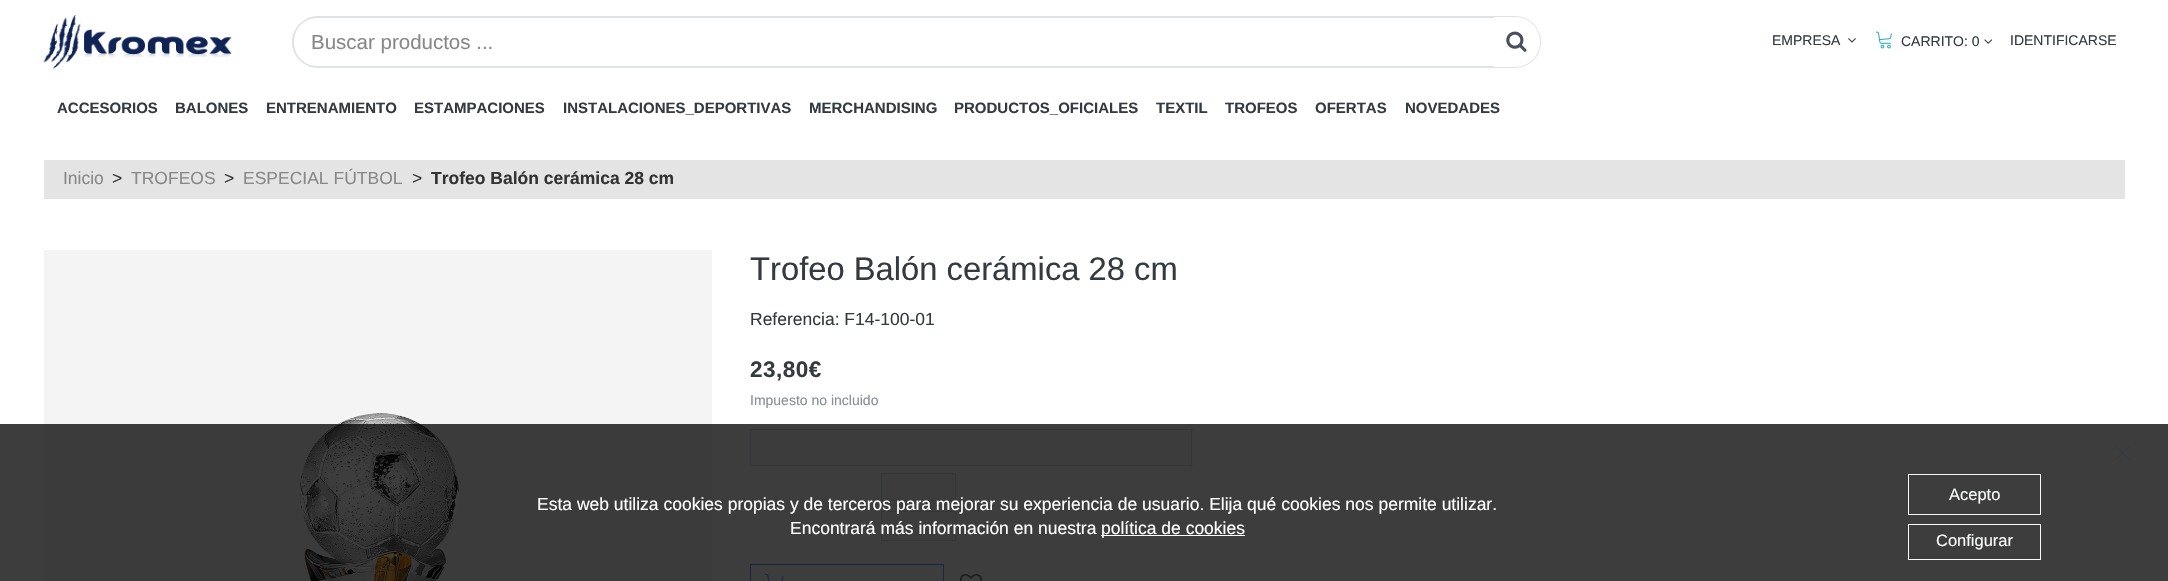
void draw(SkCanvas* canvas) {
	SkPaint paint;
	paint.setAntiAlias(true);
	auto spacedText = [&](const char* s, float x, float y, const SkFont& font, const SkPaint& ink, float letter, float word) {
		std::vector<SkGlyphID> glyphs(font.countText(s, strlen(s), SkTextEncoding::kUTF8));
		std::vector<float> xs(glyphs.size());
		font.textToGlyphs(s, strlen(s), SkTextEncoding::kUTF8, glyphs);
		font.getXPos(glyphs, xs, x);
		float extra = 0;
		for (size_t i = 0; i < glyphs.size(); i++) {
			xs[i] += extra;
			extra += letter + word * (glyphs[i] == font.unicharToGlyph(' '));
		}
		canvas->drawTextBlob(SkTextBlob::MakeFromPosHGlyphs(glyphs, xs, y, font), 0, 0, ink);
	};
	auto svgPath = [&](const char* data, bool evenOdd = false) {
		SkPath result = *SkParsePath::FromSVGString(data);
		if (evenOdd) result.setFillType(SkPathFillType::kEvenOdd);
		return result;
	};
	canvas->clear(0xffffffff);
	canvas->drawImageRect(SkImages::DeferredFromEncodedData(SkData::MakeFromFileName("img1.png")), SkRect::MakeXYWH(43, 15, 189, 54), SkSamplingOptions());
	paint.setStroke(true);
	paint.setStrokeWidth(1);
	paint.setColor(0xffdee2e6);
	canvas->drawPath(svgPath("M1493.5 16.5H1515C1529 16.5 1540.5 28 1540.5 42C1540.5 56 1529 67.5 1515 67.5H1493.5Z"), paint);
	paint.setStroke(false);
	paint.setColor(0xffffffff);
	canvas->drawPath(svgPath("M318 18H1494V66H318C304.5 66 294 55.5 294 42C294 28.5 304.5 18 318 18Z"), paint);
	paint.setColor(0xffdee2e6);
	canvas->drawPath(svgPath("M318 16H1494V68H318C304 68 292 56 292 42C292 28 304 16 318 16ZM318 18H1494V66H318C286 66 286 18 318 18Z", true), paint);
	SkFont f1(fontMgr->matchFamilyStyle("Liberation Sans", SkFontStyle::Normal()), 20.5);
	f1.setSubpixel(true);
	paint.setColor(0xff888888);
	canvas->drawString("Buscar productos ...", 311, 49, f1, paint);
	canvas->drawImageRect(SkImages::DeferredFromEncodedData(SkData::MakeFromFileName("img2.png")), SkRect::MakeXYWH(1506, 31, 21, 21), SkSamplingOptions());
	SkFont f2(fontMgr->matchFamilyStyle("Liberation Sans", SkFontStyle::Normal()), 14);
	f2.setSubpixel(true);
	paint.setColor(0xff343a40);
	canvas->drawString("EMPRESA", 1772, 45, f2, paint);
	canvas->drawImageRect(SkImages::DeferredFromEncodedData(SkData::MakeFromFileName("img3.png")), SkRect::MakeXYWH(1848, 38, 8, 5), SkSamplingOptions());
	canvas->drawImageRect(SkImages::DeferredFromEncodedData(SkData::MakeFromFileName("img4.png")), SkRect::MakeXYWH(1876, 31, 16, 18), SkSamplingOptions());
	canvas->drawString("CARRITO: 0", 1901, 46, f2, paint);
	canvas->drawImageRect(SkImages::DeferredFromEncodedData(SkData::MakeFromFileName("img5.png")), SkRect::MakeXYWH(1984, 39, 9, 5), SkSamplingOptions());
	canvas->drawString("IDENTIFICARSE", 2010, 45, f2, paint);
	SkFont f3(fontMgr->matchFamilyStyle("Liberation Sans", SkFontStyle::Bold()), 15);
	f3.setSubpixel(true);
	canvas->drawString("ACCESORIOS", 57, 113, f3, paint);
	canvas->drawString("BALONES", 175, 113, f3, paint);
	canvas->drawString("ENTRENAMIENTO", 266, 113, f3, paint);
	canvas->drawString("ESTAMPACIONES", 414, 113, f3, paint);
	canvas->drawString("INSTALACIONES_DEPORTIVAS", 563, 113, f3, paint);
	canvas->drawString("MERCHANDISING", 809, 113, f3, paint);
	canvas->drawString("PRODUCTOS_OFICIALES", 954, 113, f3, paint);
	canvas->drawString("TEXTIL", 1156, 113, f3, paint);
	canvas->drawString("TROFEOS", 1225, 113, f3, paint);
	canvas->drawString("OFERTAS", 1315, 113, f3, paint);
	canvas->drawString("NOVEDADES", 1405, 113, f3, paint);
	paint.setColor(0xffe4e4e4);
	canvas->drawRect(SkRect::MakeXYWH(44, 160, 2081, 39), paint);
	SkFont f4(fontMgr->matchFamilyStyle("Liberation Sans", SkFontStyle::Normal()), 17.5);
	f4.setSubpixel(true);
	paint.setColor(0xff888888);
	canvas->drawString("Inicio", 63, 184, f4, paint);
	paint.setColor(0xff333333);
	canvas->drawString(">", 112, 184, f4, paint);
	paint.setColor(0xff888888);
	canvas->drawString("TROFEOS", 131, 184, f4, paint);
	paint.setColor(0xff333333);
	canvas->drawString(">", 224, 184, f4, paint);
	paint.setColor(0xff888888);
	canvas->drawString("ESPECIAL FÚTBOL", 243, 184, f4, paint);
	paint.setColor(0xff333333);
	canvas->drawString(">", 412, 184, f4, paint);
	SkFont f5(fontMgr->matchFamilyStyle("Liberation Sans", SkFontStyle::Bold()), 17.5);
	f5.setSubpixel(true);
	canvas->drawString("Trofeo Balón cerámica 28 cm", 431, 184, f5, paint);
	canvas->drawImageRect(SkImages::DeferredFromEncodedData(SkData::MakeFromFileName("img6.png")), SkRect::MakeXYWH(44, 250, 668, 331), SkSamplingOptions());
	SkFont f6(fontMgr->matchFamilyStyle("Liberation Sans", SkFontStyle::Normal()), 32.75);
	f6.setSubpixel(true);
	paint.setColor(0xff343a40);
	canvas->drawString("Trofeo Balón cerámica 28 cm", 750, 280, f6, paint);
	canvas->drawString("Referencia: F14-100-01", 750, 325, f4, paint);
	SkFont f7(fontMgr->matchFamilyStyle("Liberation Sans", SkFontStyle::Bold()), 22.5);
	f7.setSubpixel(true);
	spacedText("23,80€", 750, 377, f7, paint, 0.5, 0);
	paint.setColor(0xff868e96);
	canvas->drawString("Impuesto no incluido", 750, 405, f2, paint);
	paint.setColor(0xfff8f9fa);
	canvas->drawRect(SkRect::MakeXYWH(751, 430, 440, 35), paint);
	paint.setColor(0xffdee2e6);
	canvas->drawRect(SkRect::MakeXYWH(750, 429, 443, 1), paint);
	canvas->drawRect(SkRect::MakeXYWH(1191, 429, 1, 37), paint);
	canvas->drawRect(SkRect::MakeXYWH(750, 465, 443, 1), paint);
	canvas->drawRect(SkRect::MakeXYWH(750, 429, 1, 37), paint);
	paint.setColor(0xfff8f9fa);
	canvas->drawRect(SkRect::MakeXYWH(881.5, 473.5, 74, 27), paint);
	paint.setStroke(true);
	paint.setColor(0xffdee2e6);
	canvas->drawRect(SkRect::MakeXYWH(881.5, 473.5, 74, 27), paint);
	paint.setStroke(false);
	paint.setColor(0xfffafafa);
	canvas->drawRect(SkRect::MakeXYWH(881.5, 511.5, 74, 29), paint);
	paint.setStroke(true);
	paint.setColor(0xffdee2e6);
	canvas->drawRect(SkRect::MakeXYWH(881.5, 511.5, 74, 29), paint);
	paint.setColor(0xff59a9ff);
	canvas->drawRect(SkRect::MakeXYWH(750.5, 564.5, 193, 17), paint);
	canvas->drawImageRect(SkImages::DeferredFromEncodedData(SkData::MakeFromFileName("img7.png")), SkRect::MakeXYWH(764, 573, 20, 8), SkSamplingOptions());
	canvas->drawImageRect(SkImages::DeferredFromEncodedData(SkData::MakeFromFileName("img8.png")), SkRect::MakeXYWH(960, 574, 22, 7), SkSamplingOptions());
	paint.setStroke(false);
	paint.setColor(0xc2000000);
	canvas->drawRect(SkRect::MakeXYWH(0, 424, 2168, 157), paint);
	canvas->drawImageRect(SkImages::DeferredFromEncodedData(SkData::MakeFromFileName("img9.png")), SkRect::MakeXYWH(2115, 446, 15, 14), SkSamplingOptions());
	paint.setColor(0xffffffff);
	canvas->drawString("Esta web utiliza cookies propias y de terceros para mejorar su experiencia de usuario. Elija qué cookies nos permite utilizar.", 537, 510, f4, paint);
	canvas->drawString("Encontrará más información en nuestra", 790, 534, f4, paint);
	canvas->drawRect(SkRect::MakeXYWH(1101, 535, 144, 1), paint);
	canvas->drawString("política de cookies", 1101, 534, f4, paint);
	paint.setStroke(true);
	paint.setColor(0xfff8f9fa);
	canvas->drawRect(SkRect::MakeXYWH(1908.5, 474.5, 132, 40), paint);
	SkFont f8(fontMgr->matchFamilyStyle("Liberation Sans", SkFontStyle::Normal()), 16.5);
	f8.setSubpixel(true);
	paint.setStroke(false);
	canvas->drawString("Acepto", 1949, 500, f8, paint);
	paint.setStroke(true);
	canvas->drawRect(SkRect::MakeXYWH(1908.5, 524.5, 132, 35), paint);
	paint.setStroke(false);
	canvas->drawString("Configurar", 1936, 546, f8, paint);
}
